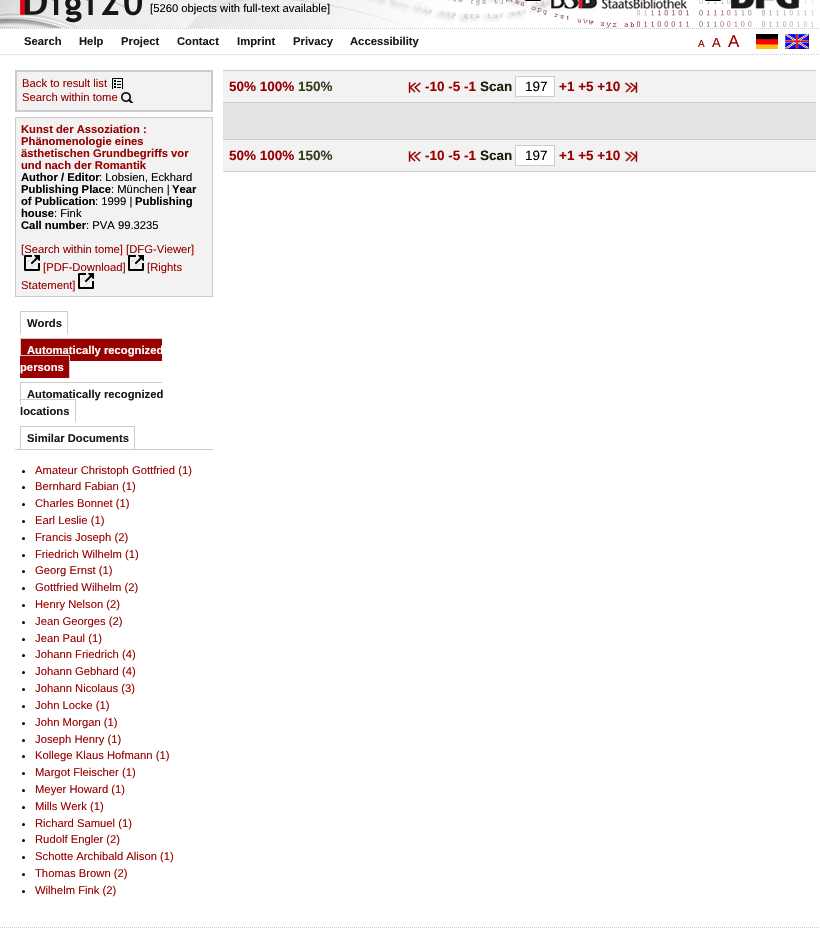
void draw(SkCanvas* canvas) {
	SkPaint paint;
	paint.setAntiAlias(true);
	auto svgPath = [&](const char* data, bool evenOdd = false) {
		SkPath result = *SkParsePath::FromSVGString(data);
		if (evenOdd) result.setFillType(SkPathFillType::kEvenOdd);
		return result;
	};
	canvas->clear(0xffffffff);
	canvas->drawImageRect(SkImages::DeferredFromEncodedData(SkData::MakeFromFileName("img1.png")), SkRect::MakeXYWH(0, 0, 814, 28), SkSamplingOptions());
	SkFont f1(fontMgr->matchFamilyStyle("Liberation Sans", SkFontStyle::Normal()), 11.25);
	f1.setSubpixel(true);
	paint.setColor(0xff000000);
	canvas->drawString("[5260 objects with full-text available]", 150, 12, f1, paint);
	canvas->drawImageRect(SkImages::DeferredFromEncodedData(SkData::MakeFromFileName("img2.png")), SkRect::MakeXYWH(551, 0, 138, 9), SkSamplingOptions());
	canvas->drawImageRect(SkImages::DeferredFromEncodedData(SkData::MakeFromFileName("img3.png")), SkRect::MakeXYWH(525, 0, 16, 1), SkSamplingOptions());
	canvas->drawImageRect(SkImages::DeferredFromEncodedData(SkData::MakeFromFileName("img4.png")), SkRect::MakeXYWH(731, 0, 68, 9), SkSamplingOptions());
	canvas->drawImageRect(SkImages::DeferredFromEncodedData(SkData::MakeFromFileName("img5.png")), SkRect::MakeXYWH(705, 0, 16, 1), SkSamplingOptions());
	paint.setStroke(true);
	paint.setStrokeWidth(1);
	paint.setColor(0xffcccccc);
	paint.setPathEffect(SkDashPathEffect::Make({{1, 1}}, 0));
	canvas->drawPath(svgPath("M0 28.5H819"), paint);
	paint.setPathEffect(nullptr);
	paint.setPathEffect(SkDashPathEffect::Make({{1, 1}}, 0));
	canvas->drawPath(svgPath("M0 54.5H819"), paint);
	paint.setPathEffect(nullptr);
	SkFont f2(fontMgr->matchFamilyStyle("Liberation Sans", SkFontStyle::Bold()), 11.25);
	f2.setSubpixel(true);
	paint.setStroke(false);
	paint.setColor(0xff181818);
	canvas->drawString("Search", 24, 45, f2, paint);
	canvas->drawString("Help", 79, 45, f2, paint);
	canvas->drawString("Project", 121, 45, f2, paint);
	canvas->drawString("Contact", 177, 45, f2, paint);
	canvas->drawString("Imprint", 237, 45, f2, paint);
	canvas->drawString("Privacy", 293, 45, f2, paint);
	canvas->drawString("Accessibility", 350, 45, f2, paint);
	SkFont f3(fontMgr->matchFamilyStyle("Liberation Sans", SkFontStyle::Normal()), 10);
	f3.setSubpixel(true);
	paint.setColor(0xff990000);
	canvas->drawString("A", 698, 47, f3, paint);
	SkFont f4(fontMgr->matchFamilyStyle("Liberation Sans", SkFontStyle::Normal()), 13);
	f4.setSubpixel(true);
	canvas->drawString("A", 712, 47, f4, paint);
	SkFont f5(fontMgr->matchFamilyStyle("Liberation Sans", SkFontStyle::Normal()), 17);
	f5.setSubpixel(true);
	canvas->drawString("A", 728, 47, f5, paint);
	canvas->drawImageRect(SkImages::DeferredFromEncodedData(SkData::MakeFromFileName("img6.png")), SkRect::MakeXYWH(756, 34, 22, 15), SkSamplingOptions());
	canvas->drawImageRect(SkImages::DeferredFromEncodedData(SkData::MakeFromFileName("img7.png")), SkRect::MakeXYWH(785, 34, 24, 15), SkSamplingOptions());
	paint.setColor(0xfff2f2f2);
	canvas->drawRect(SkRect::MakeXYWH(16, 71, 196, 40), paint);
	paint.setStroke(true);
	paint.setStrokeWidth(2);
	paint.setColor(0xffcccccc);
	canvas->drawRect(SkRect::MakeXYWH(16, 71, 196, 40), paint);
	paint.setStroke(false);
	paint.setColor(0xff990000);
	canvas->drawString("Back to result list", 22, 87, f1, paint);
	canvas->drawImageRect(SkImages::DeferredFromEncodedData(SkData::MakeFromFileName("img8.png")), SkRect::MakeXYWH(112, 78, 11, 11), SkSamplingOptions());
	canvas->drawString("Search within tome", 22, 101, f1, paint);
	canvas->drawImageRect(SkImages::DeferredFromEncodedData(SkData::MakeFromFileName("img9.png")), SkRect::MakeXYWH(121, 92, 13, 11), SkSamplingOptions());
	paint.setColor(0xfff2f2f2);
	canvas->drawRect(SkRect::MakeXYWH(15.5, 117.5, 197, 179), paint);
	paint.setStroke(true);
	paint.setStrokeWidth(1);
	paint.setColor(0xffcccccc);
	canvas->drawRect(SkRect::MakeXYWH(15.5, 117.5, 197, 179), paint);
	paint.setStroke(false);
	paint.setColor(0xff990000);
	canvas->drawString("Kunst der Assoziation :", 21, 133, f2, paint);
	canvas->drawString("Phänomenologie eines", 21, 145, f2, paint);
	canvas->drawString("ästhetischen Grundbegriffs vor", 21, 157, f2, paint);
	canvas->drawString("und nach der Romantik", 21, 169, f2, paint);
	paint.setColor(0xff000000);
	canvas->drawString("Author / Editor", 21, 181, f2, paint);
	canvas->drawString(": Lobsien, Eckhard", 99, 181, f1, paint);
	canvas->drawString("Publishing Place", 21, 193, f2, paint);
	canvas->drawString(": München |", 111, 193, f1, paint);
	canvas->drawString("Year", 172, 193, f2, paint);
	canvas->drawString("of Publication", 21, 205, f2, paint);
	canvas->drawString(": 1999 |", 95, 205, f1, paint);
	canvas->drawString("Publishing", 135, 205, f2, paint);
	canvas->drawString("house", 21, 217, f2, paint);
	canvas->drawString(": Fink", 54, 217, f1, paint);
	canvas->drawString("Call number", 21, 229, f2, paint);
	canvas->drawString(": PVA 99.3235", 86, 229, f1, paint);
	paint.setColor(0xff990000);
	canvas->drawString("[Search within tome] [DFG-Viewer]", 21, 253, f1, paint);
	canvas->drawImageRect(SkImages::DeferredFromEncodedData(SkData::MakeFromFileName("img10.png")), SkRect::MakeXYWH(24, 255, 16, 16), SkSamplingOptions());
	canvas->drawString("[Rights", 147, 271, f1, paint);
	canvas->drawString("Statement]", 21, 289, f1, paint);
	canvas->drawString("[PDF-Download]", 43, 271, f1, paint);
	canvas->drawImageRect(SkImages::DeferredFromEncodedData(SkData::MakeFromFileName("img10.png")), SkRect::MakeXYWH(78, 273, 16, 16), SkSamplingOptions());
	canvas->drawImageRect(SkImages::DeferredFromEncodedData(SkData::MakeFromFileName("img11.png")), SkRect::MakeXYWH(128, 255, 16, 16), SkSamplingOptions());
	paint.setColor(0xffcccccc);
	canvas->drawRect(SkRect::MakeXYWH(15, 449, 198, 1), paint);
	paint.setColor(0xff181818);
	canvas->drawString("Words", 27, 327, f2, paint);
	paint.setColor(0xffcccccc);
	canvas->drawRect(SkRect::MakeXYWH(20, 311, 48, 1), paint);
	canvas->drawRect(SkRect::MakeXYWH(67, 311, 1, 23), paint);
	canvas->drawRect(SkRect::MakeXYWH(20, 311, 1, 23), paint);
	paint.setColor(0xff990000);
	canvas->drawRect(SkRect::MakeXYWH(21, 339, 141, 22), paint);
	paint.setColor(0xffcccccc);
	canvas->drawRect(SkRect::MakeXYWH(20, 338, 142, 1), paint);
	canvas->drawRect(SkRect::MakeXYWH(20, 338, 1, 23), paint);
	canvas->drawRect(SkRect::MakeXYWH(20, 355, 50, 1), paint);
	paint.setColor(0xff990000);
	canvas->drawRect(SkRect::MakeXYWH(20, 356, 49, 22), paint);
	paint.setColor(0xffcccccc);
	canvas->drawRect(SkRect::MakeXYWH(69, 355, 1, 23), paint);
	paint.setColor(0xffffffff);
	canvas->drawString("Automatically recognized", 27, 354, f2, paint);
	canvas->drawString("persons", 20, 371, f2, paint);
	paint.setColor(0xffcccccc);
	canvas->drawRect(SkRect::MakeXYWH(20, 382, 142, 1), paint);
	canvas->drawRect(SkRect::MakeXYWH(20, 382, 1, 23), paint);
	canvas->drawRect(SkRect::MakeXYWH(20, 399, 56, 1), paint);
	canvas->drawRect(SkRect::MakeXYWH(75, 399, 1, 23), paint);
	paint.setColor(0xff181818);
	canvas->drawString("Automatically recognized", 27, 398, f2, paint);
	canvas->drawString("locations", 20, 415, f2, paint);
	canvas->drawString("Similar Documents", 27, 442, f2, paint);
	paint.setColor(0xffcccccc);
	canvas->drawRect(SkRect::MakeXYWH(20, 426, 115, 1), paint);
	canvas->drawRect(SkRect::MakeXYWH(134, 426, 1, 23), paint);
	canvas->drawRect(SkRect::MakeXYWH(20, 426, 1, 23), paint);
	paint.setColor(0xff000000);
	canvas->drawCircle(23.5, 471.5, 1.5, paint);
	paint.setColor(0xff990000);
	canvas->drawString("Amateur Christoph Gottfried (1)", 35, 474, f1, paint);
	paint.setColor(0xff000000);
	canvas->drawCircle(23.5, 487.5, 1.5, paint);
	paint.setColor(0xff990000);
	canvas->drawString("Bernhard Fabian (1)", 35, 490, f1, paint);
	paint.setColor(0xff000000);
	canvas->drawCircle(23.5, 504.5, 1.5, paint);
	paint.setColor(0xff990000);
	canvas->drawString("Charles Bonnet (1)", 35, 507, f1, paint);
	paint.setColor(0xff000000);
	canvas->drawCircle(23.5, 521.5, 1.5, paint);
	paint.setColor(0xff990000);
	canvas->drawString("Earl Leslie (1)", 35, 524, f1, paint);
	paint.setColor(0xff000000);
	canvas->drawCircle(23.5, 538.5, 1.5, paint);
	paint.setColor(0xff990000);
	canvas->drawString("Francis Joseph (2)", 35, 541, f1, paint);
	paint.setColor(0xff000000);
	canvas->drawCircle(23.5, 555.5, 1.5, paint);
	paint.setColor(0xff990000);
	canvas->drawString("Friedrich Wilhelm (1)", 35, 558, f1, paint);
	paint.setColor(0xff000000);
	canvas->drawCircle(23.5, 571.5, 1.5, paint);
	paint.setColor(0xff990000);
	canvas->drawString("Georg Ernst (1)", 35, 574, f1, paint);
	paint.setColor(0xff000000);
	canvas->drawCircle(23.5, 588.5, 1.5, paint);
	paint.setColor(0xff990000);
	canvas->drawString("Gottfried Wilhelm (2)", 35, 591, f1, paint);
	paint.setColor(0xff000000);
	canvas->drawCircle(23.5, 605.5, 1.5, paint);
	paint.setColor(0xff990000);
	canvas->drawString("Henry Nelson (2)", 35, 608, f1, paint);
	paint.setColor(0xff000000);
	canvas->drawCircle(23.5, 622.5, 1.5, paint);
	paint.setColor(0xff990000);
	canvas->drawString("Jean Georges (2)", 35, 625, f1, paint);
	paint.setColor(0xff000000);
	canvas->drawCircle(23.5, 639.5, 1.5, paint);
	paint.setColor(0xff990000);
	canvas->drawString("Jean Paul (1)", 35, 642, f1, paint);
	paint.setColor(0xff000000);
	canvas->drawCircle(23.5, 655.5, 1.5, paint);
	paint.setColor(0xff990000);
	canvas->drawString("Johann Friedrich (4)", 35, 658, f1, paint);
	paint.setColor(0xff000000);
	canvas->drawCircle(23.5, 672.5, 1.5, paint);
	paint.setColor(0xff990000);
	canvas->drawString("Johann Gebhard (4)", 35, 675, f1, paint);
	paint.setColor(0xff000000);
	canvas->drawCircle(23.5, 689.5, 1.5, paint);
	paint.setColor(0xff990000);
	canvas->drawString("Johann Nicolaus (3)", 35, 692, f1, paint);
	paint.setColor(0xff000000);
	canvas->drawCircle(23.5, 706.5, 1.5, paint);
	paint.setColor(0xff990000);
	canvas->drawString("John Locke (1)", 35, 709, f1, paint);
	paint.setColor(0xff000000);
	canvas->drawCircle(23.5, 723.5, 1.5, paint);
	paint.setColor(0xff990000);
	canvas->drawString("John Morgan (1)", 35, 726, f1, paint);
	paint.setColor(0xff000000);
	canvas->drawCircle(23.5, 740.5, 1.5, paint);
	paint.setColor(0xff990000);
	canvas->drawString("Joseph Henry (1)", 35, 743, f1, paint);
	paint.setColor(0xff000000);
	canvas->drawCircle(23.5, 756.5, 1.5, paint);
	paint.setColor(0xff990000);
	canvas->drawString("Kollege Klaus Hofmann (1)", 35, 759, f1, paint);
	paint.setColor(0xff000000);
	canvas->drawCircle(23.5, 773.5, 1.5, paint);
	paint.setColor(0xff990000);
	canvas->drawString("Margot Fleischer (1)", 35, 776, f1, paint);
	paint.setColor(0xff000000);
	canvas->drawCircle(23.5, 790.5, 1.5, paint);
	paint.setColor(0xff990000);
	canvas->drawString("Meyer Howard (1)", 35, 793, f1, paint);
	paint.setColor(0xff000000);
	canvas->drawCircle(23.5, 807.5, 1.5, paint);
	paint.setColor(0xff990000);
	canvas->drawString("Mills Werk (1)", 35, 810, f1, paint);
	paint.setColor(0xff000000);
	canvas->drawCircle(23.5, 824.5, 1.5, paint);
	paint.setColor(0xff990000);
	canvas->drawString("Richard Samuel (1)", 35, 827, f1, paint);
	paint.setColor(0xff000000);
	canvas->drawCircle(23.5, 840.5, 1.5, paint);
	paint.setColor(0xff990000);
	canvas->drawString("Rudolf Engler (2)", 35, 843, f1, paint);
	paint.setColor(0xff000000);
	canvas->drawCircle(23.5, 857.5, 1.5, paint);
	paint.setColor(0xff990000);
	canvas->drawString("Schotte Archibald Alison (1)", 35, 860, f1, paint);
	paint.setColor(0xff000000);
	canvas->drawCircle(23.5, 874.5, 1.5, paint);
	paint.setColor(0xff990000);
	canvas->drawString("Thomas Brown (2)", 35, 877, f1, paint);
	paint.setColor(0xff000000);
	canvas->drawCircle(23.5, 891.5, 1.5, paint);
	paint.setColor(0xff990000);
	canvas->drawString("Wilhelm Fink (2)", 35, 894, f1, paint);
	paint.setColor(0xfff2f2f2);
	canvas->drawRect(SkRect::MakeXYWH(223, 71, 593, 31), paint);
	paint.setColor(0xffcccccc);
	canvas->drawRect(SkRect::MakeXYWH(223, 70, 593, 1), paint);
	canvas->drawRect(SkRect::MakeXYWH(223, 102, 593, 1), paint);
	SkFont f6(fontMgr->matchFamilyStyle("Liberation Sans", SkFontStyle::Bold()), 13.5);
	f6.setSubpixel(true);
	paint.setColor(0xff990000);
	canvas->drawString("50% 100%", 229, 91, f6, paint);
	paint.setColor(0xff333f1d);
	canvas->drawString("150%", 298, 91, f6, paint);
	canvas->drawImageRect(SkImages::DeferredFromEncodedData(SkData::MakeFromFileName("img12.png")), SkRect::MakeXYWH(408, 82, 13, 11), SkSamplingOptions());
	paint.setColor(0xff990000);
	canvas->drawString("-10 -5 -1", 425, 91, f6, paint);
	paint.setColor(0xff171c0d);
	canvas->drawString("Scan", 480, 91, f6, paint);
	paint.setColor(0xffffffff);
	canvas->drawRect(SkRect::MakeXYWH(515.5, 76.5, 39, 20), paint);
	paint.setStroke(true);
	paint.setColor(0xffcccccc);
	canvas->drawRect(SkRect::MakeXYWH(515.5, 76.5, 39, 20), paint);
	SkFont f7(fontMgr->matchFamilyStyle("Liberation Sans", SkFontStyle::Normal()), 13.5);
	f7.setSubpixel(true);
	paint.setStroke(false);
	paint.setColor(0xff000000);
	canvas->drawString("197", 525, 91, f7, paint);
	paint.setColor(0xff990000);
	canvas->drawString("+1 +5 +10", 559, 91, f6, paint);
	canvas->drawImageRect(SkImages::DeferredFromEncodedData(SkData::MakeFromFileName("img13.png")), SkRect::MakeXYWH(624, 82, 14, 11), SkSamplingOptions());
	paint.setColor(0xffe3e3e3);
	canvas->drawRect(SkRect::MakeXYWH(223, 103, 593, 36), paint);
	paint.setColor(0xfff2f2f2);
	canvas->drawRect(SkRect::MakeXYWH(223, 140, 593, 31), paint);
	paint.setColor(0xffcccccc);
	canvas->drawRect(SkRect::MakeXYWH(223, 139, 593, 1), paint);
	canvas->drawRect(SkRect::MakeXYWH(223, 171, 593, 1), paint);
	paint.setColor(0xff990000);
	canvas->drawString("50% 100%", 229, 160, f6, paint);
	paint.setColor(0xff333f1d);
	canvas->drawString("150%", 298, 160, f6, paint);
	canvas->drawImageRect(SkImages::DeferredFromEncodedData(SkData::MakeFromFileName("img12.png")), SkRect::MakeXYWH(408, 151, 13, 11), SkSamplingOptions());
	paint.setColor(0xff990000);
	canvas->drawString("-10 -5 -1", 425, 160, f6, paint);
	paint.setColor(0xff171c0d);
	canvas->drawString("Scan", 480, 160, f6, paint);
	paint.setColor(0xffffffff);
	canvas->drawRect(SkRect::MakeXYWH(515.5, 145.5, 39, 20), paint);
	paint.setStroke(true);
	paint.setColor(0xffcccccc);
	canvas->drawRect(SkRect::MakeXYWH(515.5, 145.5, 39, 20), paint);
	paint.setStroke(false);
	paint.setColor(0xff000000);
	canvas->drawString("197", 525, 160, f7, paint);
	paint.setColor(0xff990000);
	canvas->drawString("+1 +5 +10", 559, 160, f6, paint);
	canvas->drawImageRect(SkImages::DeferredFromEncodedData(SkData::MakeFromFileName("img13.png")), SkRect::MakeXYWH(624, 151, 14, 11), SkSamplingOptions());
	paint.setStroke(true);
	paint.setColor(0xffcccccc);
	paint.setPathEffect(SkDashPathEffect::Make({{1, 1}}, 0));
	canvas->drawPath(svgPath("M0 927.5H819"), paint);
	paint.setPathEffect(nullptr);
}
